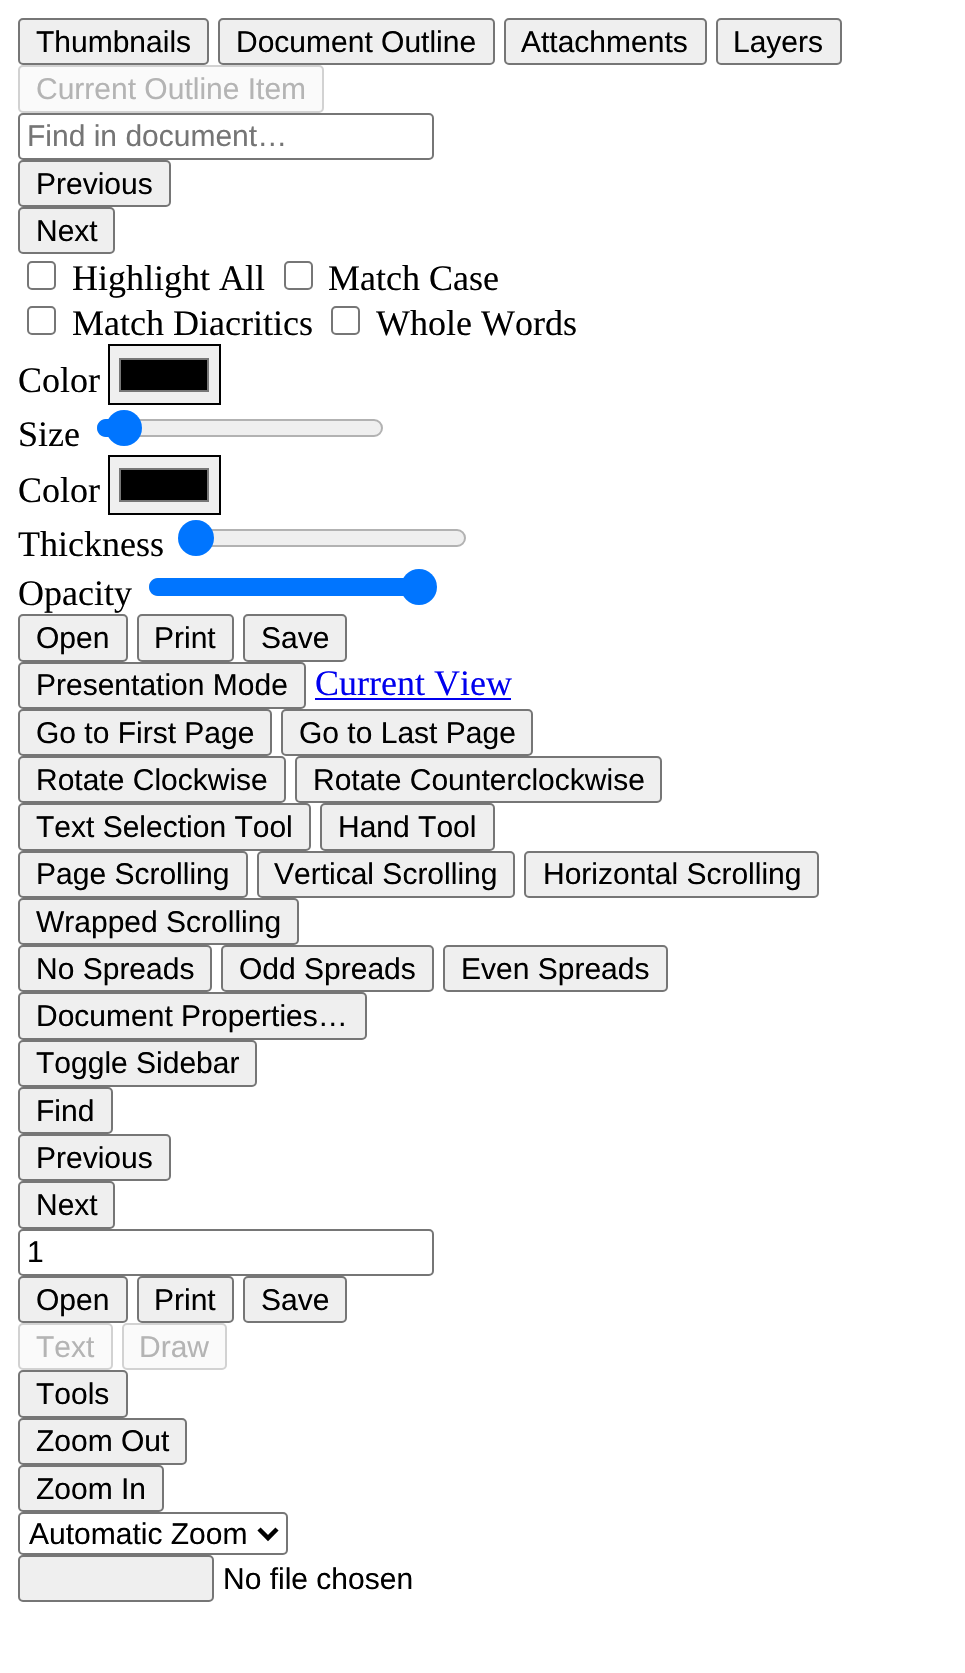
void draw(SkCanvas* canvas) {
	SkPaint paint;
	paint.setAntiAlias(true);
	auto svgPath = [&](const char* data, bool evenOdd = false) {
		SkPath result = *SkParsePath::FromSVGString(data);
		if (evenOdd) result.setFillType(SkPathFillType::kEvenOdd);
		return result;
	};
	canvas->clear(0xffffffff);
	paint.setColor(0xffefefef);
	canvas->drawRoundRect(SkRect::MakeXYWH(19, 19, 189, 45), 4, 4, paint);
	paint.setStroke(true);
	paint.setStrokeWidth(2);
	paint.setColor(0xff767676);
	canvas->drawRoundRect(SkRect::MakeXYWH(19, 19, 189, 45), 4, 4, paint);
	SkFont f1(fontMgr->matchFamilyStyle("Liberation Sans", SkFontStyle::Normal()), 30);
	f1.setSubpixel(true);
	paint.setStroke(false);
	paint.setColor(0xff000000);
	canvas->drawString("Thumbnails", 36, 52, f1, paint);
	paint.setColor(0xffefefef);
	canvas->drawRoundRect(SkRect::MakeXYWH(219, 19, 275, 45), 4, 4, paint);
	paint.setStroke(true);
	paint.setColor(0xff767676);
	canvas->drawRoundRect(SkRect::MakeXYWH(219, 19, 275, 45), 4, 4, paint);
	paint.setStroke(false);
	paint.setColor(0xff000000);
	canvas->drawString("Document Outline", 236, 52, f1, paint);
	paint.setColor(0xffefefef);
	canvas->drawRoundRect(SkRect::MakeXYWH(505, 19, 201, 45), 4, 4, paint);
	paint.setStroke(true);
	paint.setColor(0xff767676);
	canvas->drawRoundRect(SkRect::MakeXYWH(505, 19, 201, 45), 4, 4, paint);
	paint.setStroke(false);
	paint.setColor(0xff000000);
	canvas->drawString("Attachments", 521, 52, f1, paint);
	paint.setColor(0xffefefef);
	canvas->drawRoundRect(SkRect::MakeXYWH(717, 19, 124, 45), 4, 4, paint);
	paint.setStroke(true);
	paint.setColor(0xff767676);
	canvas->drawRoundRect(SkRect::MakeXYWH(717, 19, 124, 45), 4, 4, paint);
	paint.setStroke(false);
	paint.setColor(0xff000000);
	canvas->drawString("Layers", 733, 52, f1, paint);
	paint.setColor(0xfffafafa);
	canvas->drawRoundRect(SkRect::MakeXYWH(19, 66, 304, 46), 4, 4, paint);
	paint.setStroke(true);
	paint.setColor(0xffd2d2d2);
	canvas->drawRoundRect(SkRect::MakeXYWH(19, 66, 304, 46), 4, 4, paint);
	paint.setStroke(false);
	paint.setColor(0xffb4b4b4);
	canvas->drawString("Current Outline Item", 36, 99, f1, paint);
	paint.setStroke(true);
	paint.setColor(0xff767676);
	canvas->drawRoundRect(SkRect::MakeXYWH(19, 114, 414, 45), 4, 4, paint);
	paint.setStroke(false);
	paint.setColor(0xff757575);
	canvas->drawString("Find in document…", 27, 146, f1, paint);
	paint.setColor(0xffefefef);
	canvas->drawRoundRect(SkRect::MakeXYWH(19, 161, 151, 45), 4, 4, paint);
	paint.setStroke(true);
	paint.setColor(0xff767676);
	canvas->drawRoundRect(SkRect::MakeXYWH(19, 161, 151, 45), 4, 4, paint);
	paint.setStroke(false);
	paint.setColor(0xff000000);
	canvas->drawString("Previous", 36, 194, f1, paint);
	paint.setColor(0xffefefef);
	canvas->drawRoundRect(SkRect::MakeXYWH(19, 208, 95, 45), 4, 4, paint);
	paint.setStroke(true);
	paint.setColor(0xff767676);
	canvas->drawRoundRect(SkRect::MakeXYWH(19, 208, 95, 45), 4, 4, paint);
	paint.setStroke(false);
	paint.setColor(0xff000000);
	canvas->drawString("Next", 36, 241, f1, paint);
	paint.setStroke(true);
	paint.setColor(0xff767676);
	canvas->drawRoundRect(SkRect::MakeXYWH(28, 262, 27, 27), 4, 4, paint);
	SkFont f2(fontMgr->matchFamilyStyle("Liberation Serif", SkFontStyle::Normal()), 36);
	f2.setSubpixel(true);
	paint.setStroke(false);
	paint.setColor(0xff000000);
	canvas->drawString("Highlight All", 72, 290, f2, paint);
	paint.setStroke(true);
	paint.setColor(0xff767676);
	canvas->drawRoundRect(SkRect::MakeXYWH(285, 262, 27, 27), 4, 4, paint);
	paint.setStroke(false);
	paint.setColor(0xff000000);
	canvas->drawString("Match Case", 328, 290, f2, paint);
	paint.setStroke(true);
	paint.setColor(0xff767676);
	canvas->drawRoundRect(SkRect::MakeXYWH(28, 307, 27, 27), 4, 4, paint);
	paint.setStroke(false);
	paint.setColor(0xff000000);
	canvas->drawString("Match Diacritics", 72, 335, f2, paint);
	paint.setStroke(true);
	paint.setColor(0xff767676);
	canvas->drawRoundRect(SkRect::MakeXYWH(332, 307, 27, 27), 4, 4, paint);
	paint.setStroke(false);
	paint.setColor(0xff000000);
	canvas->drawString("Whole Words", 376, 335, f2, paint);
	canvas->drawString("Color", 18, 392, f2, paint);
	paint.setColor(0xffefefef);
	canvas->drawRect(SkRect::MakeXYWH(109, 345, 111, 59), paint);
	paint.setStroke(true);
	paint.setColor(0xff000000);
	canvas->drawRect(SkRect::MakeXYWH(109, 345, 111, 59), paint);
	paint.setStroke(false);
	canvas->drawRect(SkRect::MakeXYWH(120, 359, 88, 32), paint);
	paint.setStroke(true);
	paint.setColor(0xff777777);
	canvas->drawRect(SkRect::MakeXYWH(120, 359, 88, 32), paint);
	paint.setStroke(false);
	paint.setColor(0xff000000);
	canvas->drawString("Size", 18, 446, f2, paint);
	paint.setColor(0xffefefef);
	canvas->drawRoundRect(SkRect::MakeXYWH(98, 420, 284, 16), 8, 8, paint);
	paint.setStroke(true);
	paint.setColor(0xffb2b2b2);
	canvas->drawRoundRect(SkRect::MakeXYWH(98, 420, 284, 16), 8, 8, paint);
	paint.setStroke(false);
	paint.setColor(0xff0075ff);
	canvas->drawPath(svgPath("M106 419H124V437H106C101 437 97 433 97 428C97 423 101 419 106 419Z"), paint);
	canvas->drawCircle(124, 428, 18, paint);
	paint.setColor(0xff000000);
	canvas->drawString("Color", 18, 502, f2, paint);
	paint.setColor(0xffefefef);
	canvas->drawRect(SkRect::MakeXYWH(109, 456, 111, 58), paint);
	paint.setStroke(true);
	paint.setColor(0xff000000);
	canvas->drawRect(SkRect::MakeXYWH(109, 456, 111, 58), paint);
	paint.setStroke(false);
	canvas->drawRect(SkRect::MakeXYWH(120, 469, 88, 32), paint);
	paint.setStroke(true);
	paint.setColor(0xff777777);
	canvas->drawRect(SkRect::MakeXYWH(120, 469, 88, 32), paint);
	paint.setStroke(false);
	paint.setColor(0xff000000);
	canvas->drawString("Thickness", 18, 556, f2, paint);
	paint.setColor(0xffefefef);
	canvas->drawRoundRect(SkRect::MakeXYWH(181, 530, 284, 16), 8, 8, paint);
	paint.setStroke(true);
	paint.setColor(0xffb2b2b2);
	canvas->drawRoundRect(SkRect::MakeXYWH(181, 530, 284, 16), 8, 8, paint);
	paint.setStroke(false);
	paint.setColor(0xff0075ff);
	canvas->drawCircle(196, 538, 18, paint);
	paint.setColor(0xff000000);
	canvas->drawString("Opacity", 18, 605, f2, paint);
	paint.setStroke(true);
	paint.setColor(0xffb2b2b2);
	canvas->drawRoundRect(SkRect::MakeXYWH(150, 579, 283, 16), 8, 8, paint);
	paint.setStroke(false);
	paint.setColor(0xff0075ff);
	canvas->drawPath(svgPath("M158 578H419V596H158C153 596 149 592 149 587C149 582 153 578 158 578Z"), paint);
	canvas->drawCircle(419, 587, 18, paint);
	paint.setColor(0xffefefef);
	canvas->drawRoundRect(SkRect::MakeXYWH(19, 615, 108, 46), 4, 4, paint);
	paint.setStroke(true);
	paint.setColor(0xff767676);
	canvas->drawRoundRect(SkRect::MakeXYWH(19, 615, 108, 46), 4, 4, paint);
	paint.setStroke(false);
	paint.setColor(0xff000000);
	canvas->drawString("Open", 36, 648, f1, paint);
	paint.setColor(0xffefefef);
	canvas->drawRoundRect(SkRect::MakeXYWH(138, 615, 95, 46), 4, 4, paint);
	paint.setStroke(true);
	paint.setColor(0xff767676);
	canvas->drawRoundRect(SkRect::MakeXYWH(138, 615, 95, 46), 4, 4, paint);
	paint.setStroke(false);
	paint.setColor(0xff000000);
	canvas->drawString("Print", 154, 648, f1, paint);
	paint.setColor(0xffefefef);
	canvas->drawRoundRect(SkRect::MakeXYWH(244, 615, 102, 46), 4, 4, paint);
	paint.setStroke(true);
	paint.setColor(0xff767676);
	canvas->drawRoundRect(SkRect::MakeXYWH(244, 615, 102, 46), 4, 4, paint);
	paint.setStroke(false);
	paint.setColor(0xff000000);
	canvas->drawString("Save", 261, 648, f1, paint);
	paint.setColor(0xffefefef);
	canvas->drawRoundRect(SkRect::MakeXYWH(19, 663, 286, 45), 4, 4, paint);
	paint.setStroke(true);
	paint.setColor(0xff767676);
	canvas->drawRoundRect(SkRect::MakeXYWH(19, 663, 286, 45), 4, 4, paint);
	paint.setStroke(false);
	paint.setColor(0xff000000);
	canvas->drawString("Presentation Mode", 36, 695, f1, paint);
	paint.setColor(0xff0000ee);
	canvas->drawString("Current View", 315, 695, f2, paint);
	canvas->drawRect(SkRect::MakeXYWH(315, 698, 196, 2), paint);
	paint.setColor(0xffefefef);
	canvas->drawRoundRect(SkRect::MakeXYWH(19, 710, 252, 45), 4, 4, paint);
	paint.setStroke(true);
	paint.setColor(0xff767676);
	canvas->drawRoundRect(SkRect::MakeXYWH(19, 710, 252, 45), 4, 4, paint);
	paint.setStroke(false);
	paint.setColor(0xff000000);
	canvas->drawString("Go to First Page", 36, 743, f1, paint);
	paint.setColor(0xffefefef);
	canvas->drawRoundRect(SkRect::MakeXYWH(282, 710, 250, 45), 4, 4, paint);
	paint.setStroke(true);
	paint.setColor(0xff767676);
	canvas->drawRoundRect(SkRect::MakeXYWH(282, 710, 250, 45), 4, 4, paint);
	paint.setStroke(false);
	paint.setColor(0xff000000);
	canvas->drawString("Go to Last Page", 299, 743, f1, paint);
	paint.setColor(0xffefefef);
	canvas->drawRoundRect(SkRect::MakeXYWH(19, 757, 266, 45), 4, 4, paint);
	paint.setStroke(true);
	paint.setColor(0xff767676);
	canvas->drawRoundRect(SkRect::MakeXYWH(19, 757, 266, 45), 4, 4, paint);
	paint.setStroke(false);
	paint.setColor(0xff000000);
	canvas->drawString("Rotate Clockwise", 36, 790, f1, paint);
	paint.setColor(0xffefefef);
	canvas->drawRoundRect(SkRect::MakeXYWH(296, 757, 365, 45), 4, 4, paint);
	paint.setStroke(true);
	paint.setColor(0xff767676);
	canvas->drawRoundRect(SkRect::MakeXYWH(296, 757, 365, 45), 4, 4, paint);
	paint.setStroke(false);
	paint.setColor(0xff000000);
	canvas->drawString("Rotate Counterclockwise", 313, 790, f1, paint);
	paint.setColor(0xffefefef);
	canvas->drawRoundRect(SkRect::MakeXYWH(19, 804, 291, 46), 4, 4, paint);
	paint.setStroke(true);
	paint.setColor(0xff767676);
	canvas->drawRoundRect(SkRect::MakeXYWH(19, 804, 291, 46), 4, 4, paint);
	paint.setStroke(false);
	paint.setColor(0xff000000);
	canvas->drawString("Text Selection Tool", 36, 837, f1, paint);
	paint.setColor(0xffefefef);
	canvas->drawRoundRect(SkRect::MakeXYWH(321, 804, 173, 46), 4, 4, paint);
	paint.setStroke(true);
	paint.setColor(0xff767676);
	canvas->drawRoundRect(SkRect::MakeXYWH(321, 804, 173, 46), 4, 4, paint);
	paint.setStroke(false);
	paint.setColor(0xff000000);
	canvas->drawString("Hand Tool", 338, 837, f1, paint);
	paint.setColor(0xffefefef);
	canvas->drawRoundRect(SkRect::MakeXYWH(19, 852, 228, 45), 4, 4, paint);
	paint.setStroke(true);
	paint.setColor(0xff767676);
	canvas->drawRoundRect(SkRect::MakeXYWH(19, 852, 228, 45), 4, 4, paint);
	paint.setStroke(false);
	paint.setColor(0xff000000);
	canvas->drawString("Page Scrolling", 36, 884, f1, paint);
	paint.setColor(0xffefefef);
	canvas->drawRoundRect(SkRect::MakeXYWH(258, 852, 256, 45), 4, 4, paint);
	paint.setStroke(true);
	paint.setColor(0xff767676);
	canvas->drawRoundRect(SkRect::MakeXYWH(258, 852, 256, 45), 4, 4, paint);
	paint.setStroke(false);
	paint.setColor(0xff000000);
	canvas->drawString("Vertical Scrolling", 274, 884, f1, paint);
	paint.setColor(0xffefefef);
	canvas->drawRoundRect(SkRect::MakeXYWH(525, 852, 293, 45), 4, 4, paint);
	paint.setStroke(true);
	paint.setColor(0xff767676);
	canvas->drawRoundRect(SkRect::MakeXYWH(525, 852, 293, 45), 4, 4, paint);
	paint.setStroke(false);
	paint.setColor(0xff000000);
	canvas->drawString("Horizontal Scrolling", 543, 884, f1, paint);
	paint.setColor(0xffefefef);
	canvas->drawRoundRect(SkRect::MakeXYWH(19, 899, 279, 45), 4, 4, paint);
	paint.setStroke(true);
	paint.setColor(0xff767676);
	canvas->drawRoundRect(SkRect::MakeXYWH(19, 899, 279, 45), 4, 4, paint);
	paint.setStroke(false);
	paint.setColor(0xff000000);
	canvas->drawString("Wrapped Scrolling", 36, 932, f1, paint);
	paint.setColor(0xffefefef);
	canvas->drawRoundRect(SkRect::MakeXYWH(19, 946, 192, 45), 4, 4, paint);
	paint.setStroke(true);
	paint.setColor(0xff767676);
	canvas->drawRoundRect(SkRect::MakeXYWH(19, 946, 192, 45), 4, 4, paint);
	paint.setStroke(false);
	paint.setColor(0xff000000);
	canvas->drawString("No Spreads", 36, 979, f1, paint);
	paint.setColor(0xffefefef);
	canvas->drawRoundRect(SkRect::MakeXYWH(222, 946, 211, 45), 4, 4, paint);
	paint.setStroke(true);
	paint.setColor(0xff767676);
	canvas->drawRoundRect(SkRect::MakeXYWH(222, 946, 211, 45), 4, 4, paint);
	paint.setStroke(false);
	paint.setColor(0xff000000);
	canvas->drawString("Odd Spreads", 239, 979, f1, paint);
	paint.setColor(0xffefefef);
	canvas->drawRoundRect(SkRect::MakeXYWH(444, 946, 223, 45), 4, 4, paint);
	paint.setStroke(true);
	paint.setColor(0xff767676);
	canvas->drawRoundRect(SkRect::MakeXYWH(444, 946, 223, 45), 4, 4, paint);
	paint.setStroke(false);
	paint.setColor(0xff000000);
	canvas->drawString("Even Spreads", 461, 979, f1, paint);
	paint.setColor(0xffefefef);
	canvas->drawRoundRect(SkRect::MakeXYWH(19, 993, 347, 46), 4, 4, paint);
	paint.setStroke(true);
	paint.setColor(0xff767676);
	canvas->drawRoundRect(SkRect::MakeXYWH(19, 993, 347, 46), 4, 4, paint);
	paint.setStroke(false);
	paint.setColor(0xff000000);
	canvas->drawString("Document Properties…", 36, 1026, f1, paint);
	paint.setColor(0xffefefef);
	canvas->drawRoundRect(SkRect::MakeXYWH(19, 1041, 237, 45), 4, 4, paint);
	paint.setStroke(true);
	paint.setColor(0xff767676);
	canvas->drawRoundRect(SkRect::MakeXYWH(19, 1041, 237, 45), 4, 4, paint);
	paint.setStroke(false);
	paint.setColor(0xff000000);
	canvas->drawString("Toggle Sidebar", 36, 1073, f1, paint);
	paint.setColor(0xffefefef);
	canvas->drawRoundRect(SkRect::MakeXYWH(19, 1088, 93, 45), 4, 4, paint);
	paint.setStroke(true);
	paint.setColor(0xff767676);
	canvas->drawRoundRect(SkRect::MakeXYWH(19, 1088, 93, 45), 4, 4, paint);
	paint.setStroke(false);
	paint.setColor(0xff000000);
	canvas->drawString("Find", 36, 1121, f1, paint);
	paint.setColor(0xffefefef);
	canvas->drawRoundRect(SkRect::MakeXYWH(19, 1135, 151, 45), 4, 4, paint);
	paint.setStroke(true);
	paint.setColor(0xff767676);
	canvas->drawRoundRect(SkRect::MakeXYWH(19, 1135, 151, 45), 4, 4, paint);
	paint.setStroke(false);
	paint.setColor(0xff000000);
	canvas->drawString("Previous", 36, 1168, f1, paint);
	paint.setColor(0xffefefef);
	canvas->drawRoundRect(SkRect::MakeXYWH(19, 1182, 95, 46), 4, 4, paint);
	paint.setStroke(true);
	paint.setColor(0xff767676);
	canvas->drawRoundRect(SkRect::MakeXYWH(19, 1182, 95, 46), 4, 4, paint);
	paint.setStroke(false);
	paint.setColor(0xff000000);
	canvas->drawString("Next", 36, 1215, f1, paint);
	paint.setStroke(true);
	paint.setColor(0xff767676);
	canvas->drawRoundRect(SkRect::MakeXYWH(19, 1230, 414, 45), 4, 4, paint);
	paint.setStroke(false);
	paint.setColor(0xff000000);
	canvas->drawString("1", 27, 1262, f1, paint);
	paint.setColor(0xffefefef);
	canvas->drawRoundRect(SkRect::MakeXYWH(19, 1277, 108, 45), 4, 4, paint);
	paint.setStroke(true);
	paint.setColor(0xff767676);
	canvas->drawRoundRect(SkRect::MakeXYWH(19, 1277, 108, 45), 4, 4, paint);
	paint.setStroke(false);
	paint.setColor(0xff000000);
	canvas->drawString("Open", 36, 1310, f1, paint);
	paint.setColor(0xffefefef);
	canvas->drawRoundRect(SkRect::MakeXYWH(138, 1277, 95, 45), 4, 4, paint);
	paint.setStroke(true);
	paint.setColor(0xff767676);
	canvas->drawRoundRect(SkRect::MakeXYWH(138, 1277, 95, 45), 4, 4, paint);
	paint.setStroke(false);
	paint.setColor(0xff000000);
	canvas->drawString("Print", 154, 1310, f1, paint);
	paint.setColor(0xffefefef);
	canvas->drawRoundRect(SkRect::MakeXYWH(244, 1277, 102, 45), 4, 4, paint);
	paint.setStroke(true);
	paint.setColor(0xff767676);
	canvas->drawRoundRect(SkRect::MakeXYWH(244, 1277, 102, 45), 4, 4, paint);
	paint.setStroke(false);
	paint.setColor(0xff000000);
	canvas->drawString("Save", 261, 1310, f1, paint);
	paint.setColor(0xfffafafa);
	canvas->drawRoundRect(SkRect::MakeXYWH(19, 1324, 93, 45), 4, 4, paint);
	paint.setStroke(true);
	paint.setColor(0xffd2d2d2);
	canvas->drawRoundRect(SkRect::MakeXYWH(19, 1324, 93, 45), 4, 4, paint);
	paint.setStroke(false);
	paint.setColor(0xffb4b4b4);
	canvas->drawString("Text", 36, 1357, f1, paint);
	paint.setColor(0xfffafafa);
	canvas->drawRoundRect(SkRect::MakeXYWH(123, 1324, 103, 45), 4, 4, paint);
	paint.setStroke(true);
	paint.setColor(0xffd2d2d2);
	canvas->drawRoundRect(SkRect::MakeXYWH(123, 1324, 103, 45), 4, 4, paint);
	paint.setStroke(false);
	paint.setColor(0xffb4b4b4);
	canvas->drawString("Draw", 139, 1357, f1, paint);
	paint.setColor(0xffefefef);
	canvas->drawRoundRect(SkRect::MakeXYWH(19, 1371, 108, 46), 4, 4, paint);
	paint.setStroke(true);
	paint.setColor(0xff767676);
	canvas->drawRoundRect(SkRect::MakeXYWH(19, 1371, 108, 46), 4, 4, paint);
	paint.setStroke(false);
	paint.setColor(0xff000000);
	canvas->drawString("Tools", 36, 1404, f1, paint);
	paint.setColor(0xffefefef);
	canvas->drawRoundRect(SkRect::MakeXYWH(19, 1419, 167, 45), 4, 4, paint);
	paint.setStroke(true);
	paint.setColor(0xff767676);
	canvas->drawRoundRect(SkRect::MakeXYWH(19, 1419, 167, 45), 4, 4, paint);
	paint.setStroke(false);
	paint.setColor(0xff000000);
	canvas->drawString("Zoom Out", 36, 1451, f1, paint);
	paint.setColor(0xffefefef);
	canvas->drawRoundRect(SkRect::MakeXYWH(19, 1466, 144, 45), 4, 4, paint);
	paint.setStroke(true);
	paint.setColor(0xff767676);
	canvas->drawRoundRect(SkRect::MakeXYWH(19, 1466, 144, 45), 4, 4, paint);
	paint.setStroke(false);
	paint.setColor(0xff000000);
	canvas->drawString("Zoom In", 36, 1499, f1, paint);
	paint.setStroke(true);
	paint.setColor(0xff767676);
	canvas->drawRoundRect(SkRect::MakeXYWH(19, 1513, 268, 41), 4, 4, paint);
	paint.setStrokeWidth(4.5);
	paint.setColor(0xff000000);
	canvas->drawPath(svgPath("M259 1529L268 1538L277 1529"), paint);
	paint.setStroke(false);
	canvas->drawString("Automatic Zoom", 29, 1544, f1, paint);
	paint.setColor(0xffefefef);
	canvas->drawRoundRect(SkRect::MakeXYWH(19, 1556, 194, 45), 4, 4, paint);
	paint.setStroke(true);
	paint.setStrokeWidth(2);
	paint.setColor(0xff767676);
	canvas->drawRoundRect(SkRect::MakeXYWH(19, 1556, 194, 45), 4, 4, paint);
	paint.setStroke(false);
	paint.setColor(0xff000000);
	canvas->drawString("No file chosen", 223, 1589, f1, paint);
}
